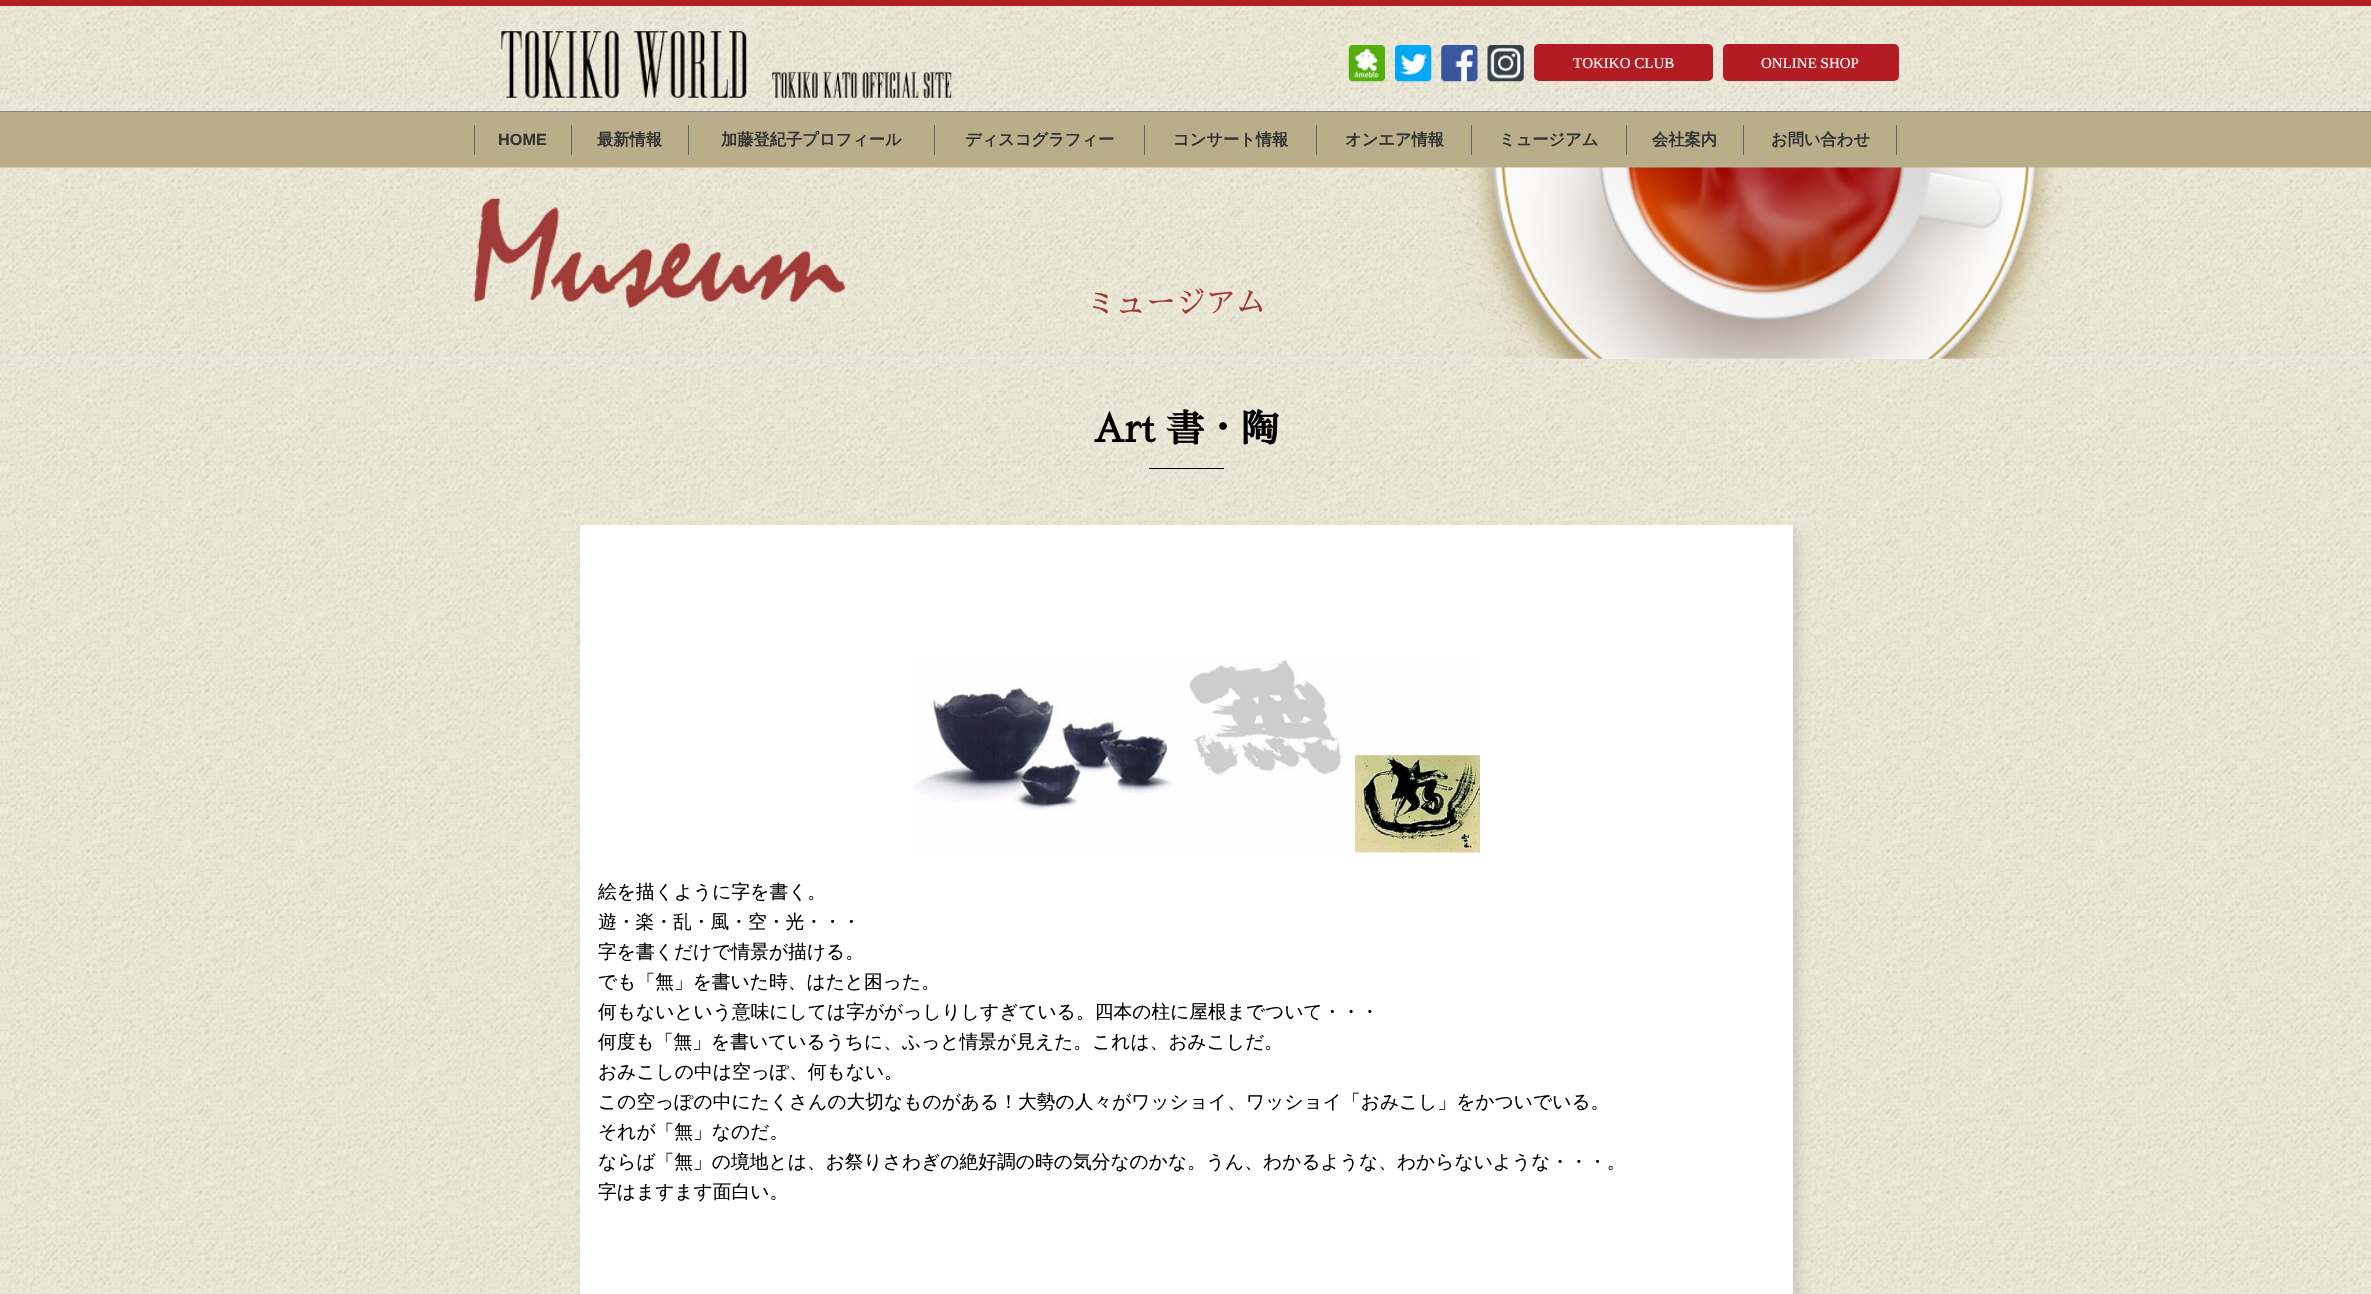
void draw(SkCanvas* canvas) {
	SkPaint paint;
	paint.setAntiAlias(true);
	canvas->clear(0xffffffff);
	paint.setColor(0xff666666);
	canvas->drawRect(SkRect::MakeXYWH(0, 111, 2371, 1), paint);
	canvas->drawImageRect(SkImages::DeferredFromEncodedData(SkData::MakeFromFileName("img1.png")), SkRect::MakeXYWH(0, 6, 2371, 106), SkSamplingOptions());
	paint.setColor(0xffb41c24);
	canvas->drawRect(SkRect::MakeXYWH(0, 0, 2371, 6), paint);
	canvas->drawImageRect(SkImages::DeferredFromEncodedData(SkData::MakeFromFileName("img2.png")), SkRect::MakeXYWH(501, 31, 451, 68), SkSamplingOptions());
	canvas->drawImageRect(SkImages::DeferredFromEncodedData(SkData::MakeFromFileName("img3.png")), SkRect::MakeXYWH(1348, 45, 37, 37), SkSamplingOptions());
	canvas->drawImageRect(SkImages::DeferredFromEncodedData(SkData::MakeFromFileName("img4.png")), SkRect::MakeXYWH(1395, 45, 37, 37), SkSamplingOptions());
	canvas->drawImageRect(SkImages::DeferredFromEncodedData(SkData::MakeFromFileName("img5.png")), SkRect::MakeXYWH(1441, 45, 37, 37), SkSamplingOptions());
	canvas->drawImageRect(SkImages::DeferredFromEncodedData(SkData::MakeFromFileName("img6.png")), SkRect::MakeXYWH(1487, 45, 37, 37), SkSamplingOptions());
	canvas->drawRoundRect(SkRect::MakeXYWH(1534, 44, 179, 37), 5, 5, paint);
	SkFont f1(fontMgr->matchFamilyStyle("Liberation Serif", SkFontStyle::Normal()), 15);
	f1.setSubpixel(true);
	paint.setColor(0xffffffff);
	canvas->drawString("TOKIKO CLUB", 1573, 68, f1, paint);
	paint.setColor(0xffb41c24);
	canvas->drawRoundRect(SkRect::MakeXYWH(1723, 44, 176, 37), 5, 5, paint);
	paint.setColor(0xffffffff);
	canvas->drawString("ONLINE SHOP", 1761, 68, f1, paint);
	paint.setColor(0xffb9ae89);
	canvas->drawRect(SkRect::MakeXYWH(0, 112, 2371, 56), paint);
	paint.setColor(0xff666666);
	canvas->drawRect(SkRect::MakeXYWH(474, 125, 1, 30), paint);
	SkFont f2(fontMgr->matchFamilyStyle("Liberation Sans", SkFontStyle::Bold()), 16.25);
	f2.setSubpixel(true);
	paint.setColor(0xff333333);
	canvas->drawString("HOME", 498, 145, f2, paint);
	paint.setColor(0xff666666);
	canvas->drawRect(SkRect::MakeXYWH(571, 125, 1, 30), paint);
	SkFont f3(fontMgr->matchFamilyStyle("WenQuanYi Zen Hei", SkFontStyle::Bold()), 16.25);
	f3.setSubpixel(true);
	paint.setColor(0xff333333);
	canvas->drawString("最新情報", 597, 145, f3, paint);
	paint.setColor(0xff666666);
	canvas->drawRect(SkRect::MakeXYWH(688, 125, 1, 30), paint);
	paint.setColor(0xff333333);
	canvas->drawString("加藤登紀子プロフィール", 721, 145, f3, paint);
	paint.setColor(0xff666666);
	canvas->drawRect(SkRect::MakeXYWH(934, 125, 1, 30), paint);
	paint.setColor(0xff333333);
	canvas->drawString("ディスコグラフィー", 965, 145, f3, paint);
	paint.setColor(0xff666666);
	canvas->drawRect(SkRect::MakeXYWH(1144, 125, 1, 30), paint);
	paint.setColor(0xff333333);
	canvas->drawString("コンサート情報", 1173, 145, f3, paint);
	paint.setColor(0xff666666);
	canvas->drawRect(SkRect::MakeXYWH(1316, 125, 1, 30), paint);
	paint.setColor(0xff333333);
	canvas->drawString("オンエア情報", 1345, 145, f3, paint);
	paint.setColor(0xff666666);
	canvas->drawRect(SkRect::MakeXYWH(1471, 125, 1, 30), paint);
	paint.setColor(0xff333333);
	canvas->drawString("ミュージアム", 1499, 145, f3, paint);
	paint.setColor(0xff666666);
	canvas->drawRect(SkRect::MakeXYWH(1626, 125, 1, 30), paint);
	paint.setColor(0xff333333);
	canvas->drawString("会社案内", 1652, 145, f3, paint);
	paint.setColor(0xff666666);
	canvas->drawRect(SkRect::MakeXYWH(1896, 125, 1, 30), paint);
	canvas->drawRect(SkRect::MakeXYWH(1743, 125, 1, 30), paint);
	paint.setColor(0xff333333);
	canvas->drawString("お問い合わせ", 1771, 145, f3, paint);
	canvas->drawImageRect(SkImages::DeferredFromEncodedData(SkData::MakeFromFileName("img9.png")), SkRect::MakeXYWH(0, 358, 2371, 936), SkSamplingOptions());
	canvas->drawImageRect(SkImages::DeferredFromEncodedData(SkData::MakeFromFileName("img7.png")), SkRect::MakeXYWH(0, 167, 2371, 192), SkSamplingOptions());
	canvas->drawImageRect(SkImages::DeferredFromEncodedData(SkData::MakeFromFileName("img8.png")), SkRect::MakeXYWH(473, 198, 374, 110), SkSamplingOptions());
	SkFont f4(fontMgr->matchFamilyStyle("Sawarabi Mincho", SkFontStyle::Normal()), 30);
	f4.setSubpixel(true);
	paint.setColor(0xffa13b37);
	canvas->drawString("ミュージアム", 1086, 313, f4, paint);
	SkFont f5(fontMgr->matchFamilyStyle("Sawarabi Mincho", SkFontStyle::Bold()), 37.5);
	f5.setSubpixel(true);
	paint.setColor(0xff000000);
	canvas->drawString("Art 書・陶", 1093, 442, f5, paint);
	canvas->drawRect(SkRect::MakeXYWH(1149, 468, 75, 1), paint);
	paint.setColor(0x334e4e4e);
	paint.setMaskFilter(SkMaskFilter::MakeBlur(kNormal_SkBlurStyle, 6));
	canvas->drawRect(SkRect::MakeXYWH(586, 531, 1213, 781), paint);
	paint.setMaskFilter(nullptr);
	paint.setColor(0xffffffff);
	canvas->drawRect(SkRect::MakeXYWH(580, 525, 1213, 769), paint);
	canvas->drawImageRect(SkImages::DeferredFromEncodedData(SkData::MakeFromFileName("img10.png")), SkRect::MakeXYWH(913, 660, 567, 193), SkSamplingOptions());
	SkFont f6(fontMgr->matchFamilyStyle("WenQuanYi Zen Hei", SkFontStyle(500, SkFontStyle::kNormal_Width, SkFontStyle::kUpright_Slant)), 18.75);
	f6.setSubpixel(true);
	paint.setColor(0xff000000);
	canvas->drawString("絵を描くように字を書く。", 598, 898, f6, paint);
	canvas->drawString("遊・楽・乱・風・空・光・・・", 598, 928, f6, paint);
	canvas->drawString("字を書くだけで情景が描ける。", 598, 958, f6, paint);
	canvas->drawString("でも「無」を書いた時、はたと困った。", 598, 988, f6, paint);
	canvas->drawString("何もないという意味にしては字ががっしりしすぎている。四本の柱に屋根までついて・・・", 598, 1018, f6, paint);
	canvas->drawString("何度も「無」を書いているうちに、ふっと情景が見えた。これは、おみこしだ。", 598, 1048, f6, paint);
	canvas->drawString("おみこしの中は空っぽ、何もない。", 598, 1078, f6, paint);
	canvas->drawString("この空っぽの中にたくさんの大切なものがある！大勢の人々がワッショイ、ワッショイ「おみこし」をかついでいる。", 598, 1108, f6, paint);
	canvas->drawString("それが「無」なのだ。", 598, 1138, f6, paint);
	canvas->drawString("ならば「無」の境地とは、お祭りさわぎの絶好調の時の気分なのかな。うん、わかるような、わからないような・・・。", 598, 1168, f6, paint);
	canvas->drawString("字はますます面白い。", 598, 1198, f6, paint);
}
